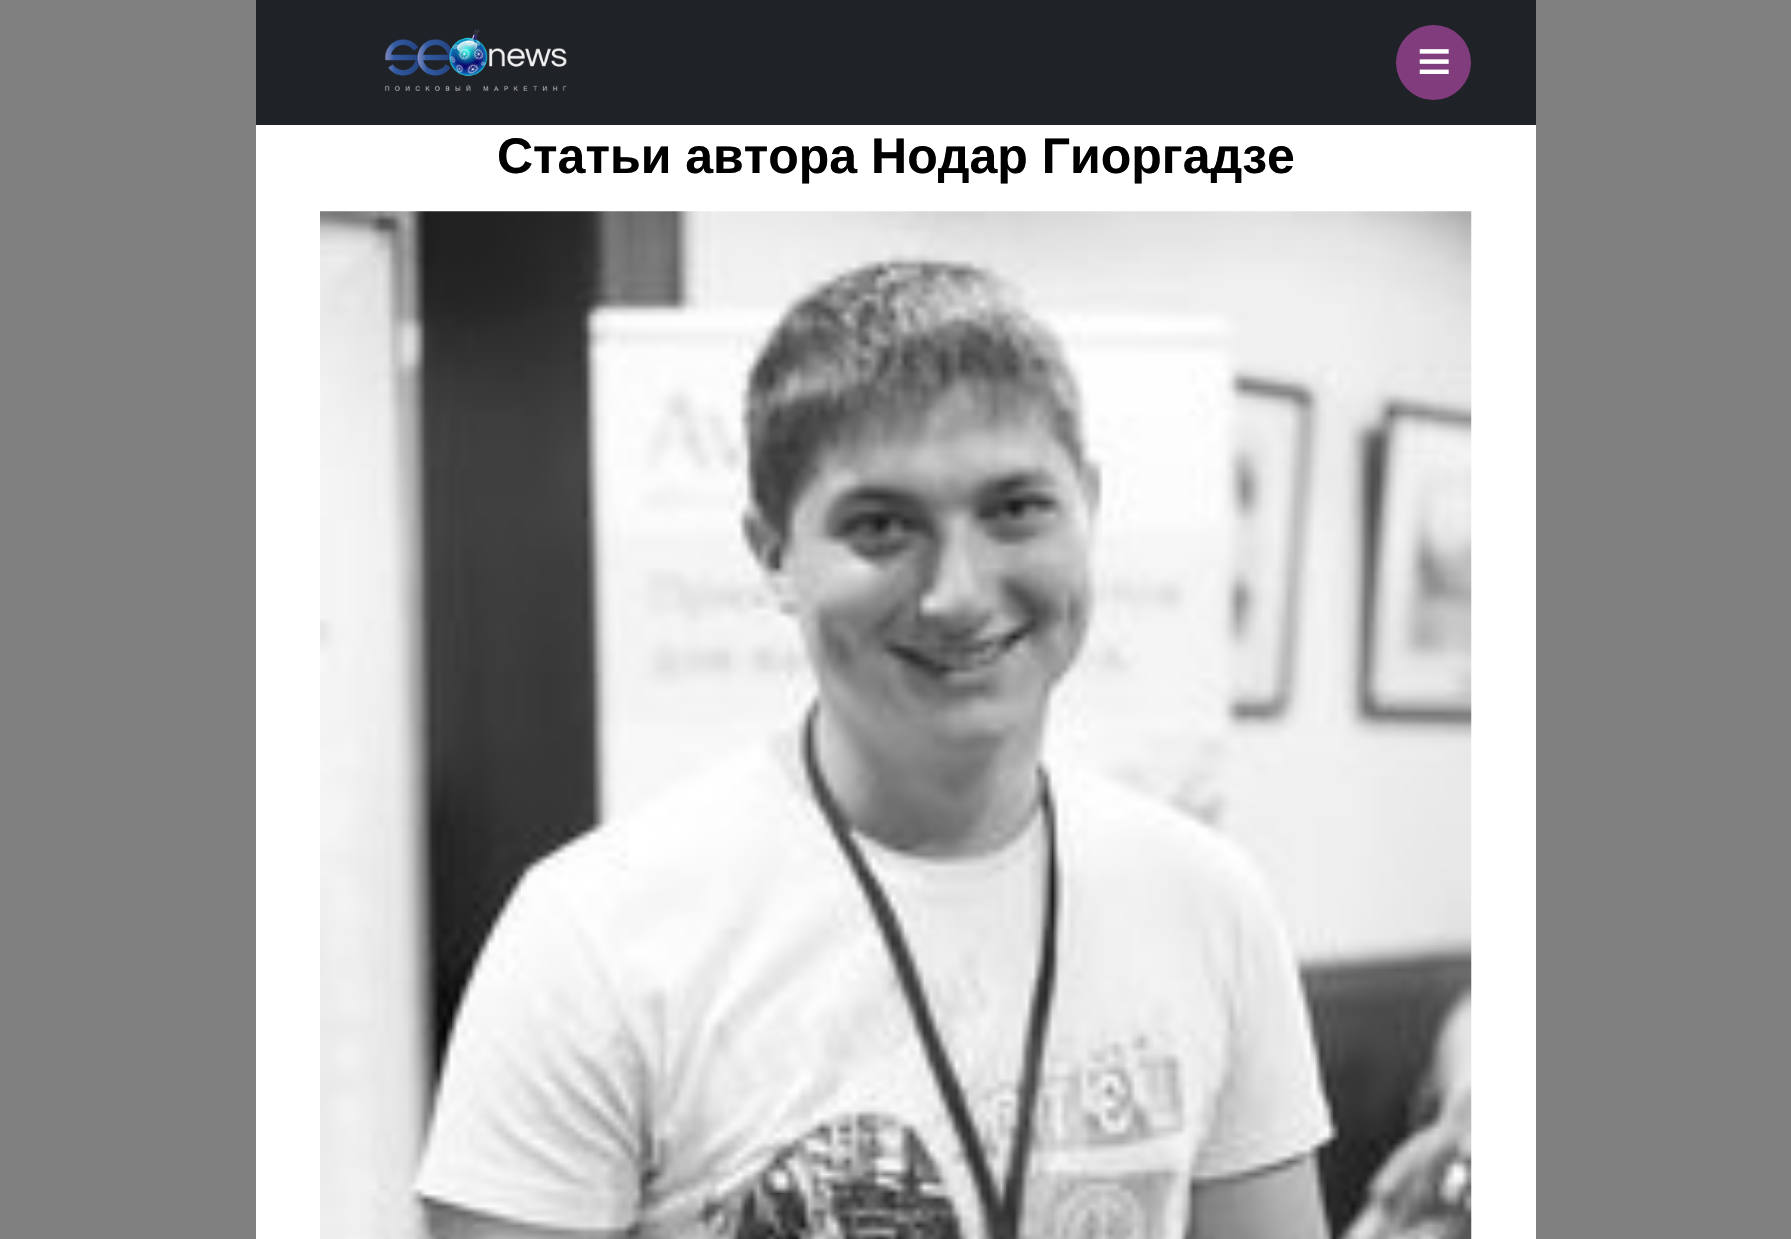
void draw(SkCanvas* canvas) {
	SkPaint paint;
	paint.setAntiAlias(true);
	canvas->clear(0xff808080);
	paint.setColor(0xffffffff);
	canvas->drawRect(SkRect::MakeXYWH(256, 125, 1280, 1114), paint);
	paint.setColor(0xff1f2226);
	canvas->drawRect(SkRect::MakeXYWH(256, 0, 1280, 125), paint);
	canvas->drawImageRect(SkImages::DeferredFromEncodedData(SkData::MakeFromFileName("img1.png")), SkRect::MakeXYWH(384, 29, 183, 62), SkSamplingOptions());
	paint.setColor(0xff813c7e);
	canvas->drawCircle(1433.5, 62.5, 37.5, paint);
	SkFont f1(fontMgr->matchFamilyStyle("Liberation Sans", SkFontStyle::Normal()), 59);
	f1.setSubpixel(true);
	paint.setColor(0xffffffff);
	canvas->drawString("≡", 1417, 81, f1, paint);
	SkFont f2(fontMgr->matchFamilyStyle("Liberation Sans", SkFontStyle::Bold()), 50);
	f2.setSubpixel(true);
	paint.setColor(0xff000000);
	canvas->drawString("Статьи автора Нодар Гиоргадзе", 497, 173, f2, paint);
	canvas->drawImageRect(SkImages::DeferredFromEncodedData(SkData::MakeFromFileName("img2.png")), SkRect::MakeXYWH(320, 211, 1152, 1028), SkSamplingOptions());
}
